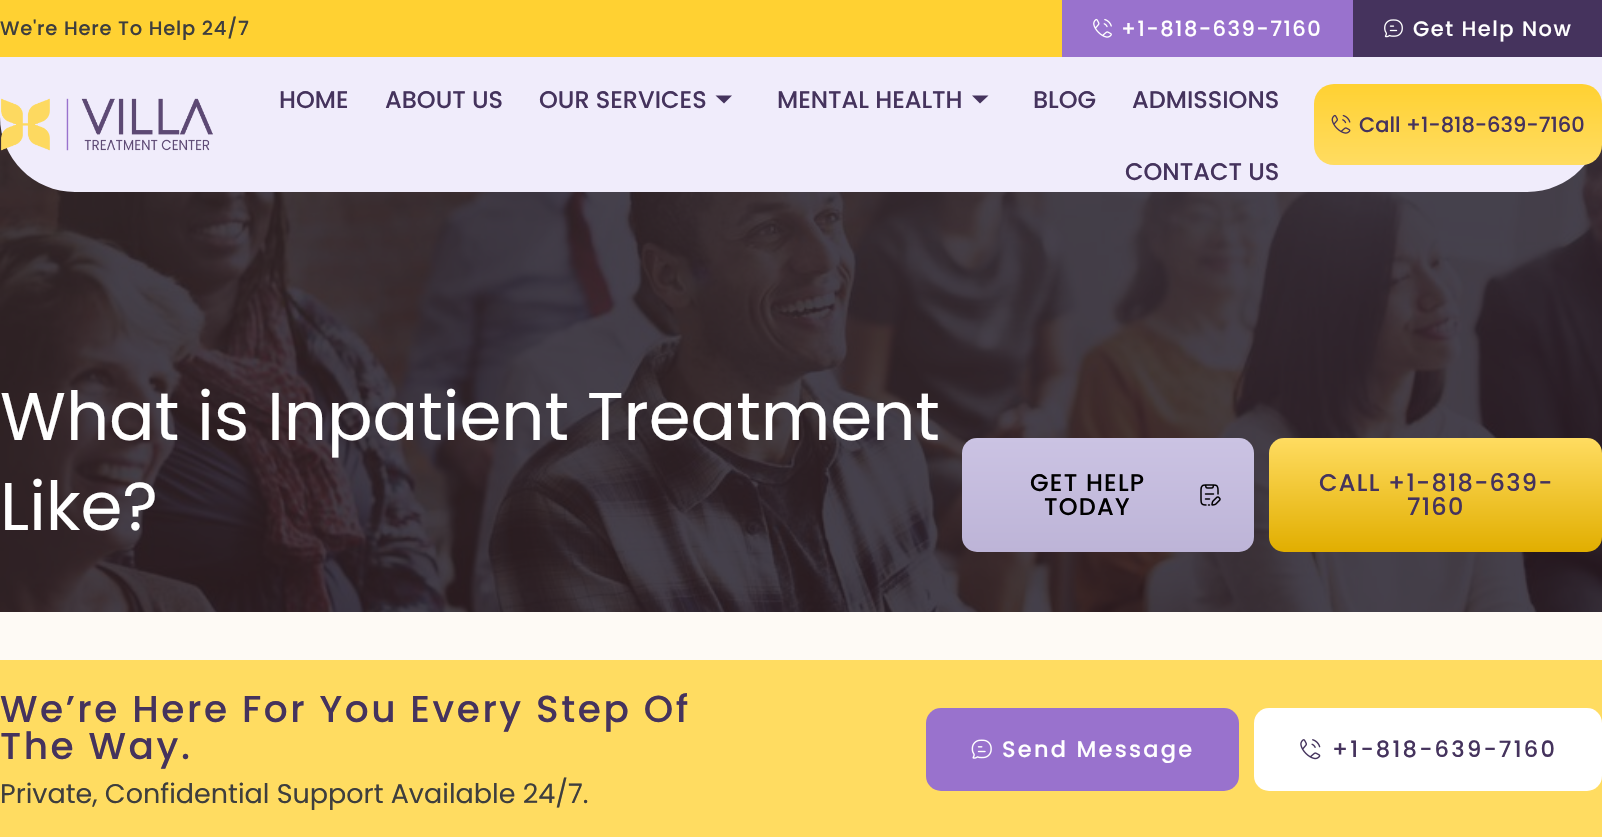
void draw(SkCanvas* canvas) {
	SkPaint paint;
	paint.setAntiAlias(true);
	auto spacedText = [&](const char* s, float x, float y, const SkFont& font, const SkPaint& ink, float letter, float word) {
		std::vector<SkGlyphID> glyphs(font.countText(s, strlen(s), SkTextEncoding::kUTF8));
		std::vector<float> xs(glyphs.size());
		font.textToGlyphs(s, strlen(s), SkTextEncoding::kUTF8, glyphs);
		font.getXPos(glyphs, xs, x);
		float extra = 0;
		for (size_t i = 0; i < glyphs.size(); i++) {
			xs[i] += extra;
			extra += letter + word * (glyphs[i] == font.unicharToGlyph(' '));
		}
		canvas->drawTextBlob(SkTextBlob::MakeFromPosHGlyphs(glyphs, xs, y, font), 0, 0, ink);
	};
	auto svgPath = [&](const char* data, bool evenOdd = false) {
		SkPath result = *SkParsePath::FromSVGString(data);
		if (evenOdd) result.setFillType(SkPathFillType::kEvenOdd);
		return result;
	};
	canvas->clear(0xfffefaf5);
	paint.setColor(0xffffd132);
	canvas->drawRect(SkRect::MakeXYWH(0, 0, 1062, 57), paint);
	SkFont f1(fontMgr->matchFamilyStyle("Poppins", SkFontStyle(500, SkFontStyle::kNormal_Width, SkFontStyle::kUpright_Slant)), 19.5);
	f1.setSubpixel(true);
	paint.setColor(0xff3e3e3e);
	spacedText("We're Here To Help 24/7", 0, 35, f1, paint, 0.75, 0);
	paint.setColor(0xff9972cd);
	canvas->drawRect(SkRect::MakeXYWH(1062, 0, 291, 57), paint);
	canvas->drawImageRect(SkImages::DeferredFromEncodedData(SkData::MakeFromFileName("img1.png")), SkRect::MakeXYWH(1093, 18, 19, 20), SkSamplingOptions());
	SkFont f2(fontMgr->matchFamilyStyle("Poppins", SkFontStyle(500, SkFontStyle::kNormal_Width, SkFontStyle::kUpright_Slant)), 21);
	f2.setSubpixel(true);
	paint.setColor(0xffffffff);
	spacedText("+1-818-639-7160", 1121, 36, f2, paint, 1.5, 0);
	paint.setColor(0xff45335d);
	canvas->drawRect(SkRect::MakeXYWH(1353, 0, 249, 57), paint);
	canvas->drawImageRect(SkImages::DeferredFromEncodedData(SkData::MakeFromFileName("img2.png")), SkRect::MakeXYWH(1384, 19, 19, 19), SkSamplingOptions());
	paint.setColor(0xffffffff);
	spacedText("Get Help Now", 1413, 36, f2, paint, 1.5, 0);
	canvas->drawImageRect(SkImages::DeferredFromEncodedData(SkData::MakeFromFileName("img5.png")), SkRect::MakeXYWH(0, 117, 1602, 495), SkSamplingOptions());
	paint.setColor(0xfff0ecfb);
	canvas->drawPath(svgPath("M0 57H1602V117C1602 158.5 1568.5 192 1527 192H75C33.5 192 0 158.5 0 117Z"), paint);
	canvas->drawImageRect(SkImages::DeferredFromEncodedData(SkData::MakeFromFileName("img3.png")), SkRect::MakeXYWH(1, 98, 212, 53), SkSamplingOptions());
	SkFont f3(fontMgr->matchFamilyStyle("Poppins", SkFontStyle(500, SkFontStyle::kNormal_Width, SkFontStyle::kUpright_Slant)), 24);
	f3.setSubpixel(true);
	paint.setColor(0xff45335d);
	canvas->drawString("HOME", 279, 108, f3, paint);
	canvas->drawString("ABOUT US", 385, 108, f3, paint);
	canvas->drawString("OUR SERVICES", 539, 108, f3, paint);
	canvas->drawPath(svgPath("M715.5 95.5H732L724 103.5Z"), paint);
	canvas->drawString("MENTAL HEALTH", 777, 108, f3, paint);
	canvas->drawPath(svgPath("M972 95.5H988.5L980 103.5Z"), paint);
	canvas->drawString("BLOG", 1033, 108, f3, paint);
	canvas->drawString("ADMISSIONS", 1132, 108, f3, paint);
	canvas->drawString("CONTACT US", 1125, 180, f3, paint);
	{
		const SkColor colors[] = {0xffffd132, 0xffffdc61};
		const float stops[] = {0, 1};
		const SkPoint ends[] = {{1458, 84}, {1458, 165}};
		paint.setShader(SkGradientShader::MakeLinear(ends, colors, stops, 2, SkTileMode::kClamp));
		paint.setAlpha(255);
	}
	canvas->drawRoundRect(SkRect::MakeXYWH(1314, 84, 288, 81), 20, 20, paint);
	canvas->drawImageRect(SkImages::DeferredFromEncodedData(SkData::MakeFromFileName("img4.png")), SkRect::MakeXYWH(1331, 114, 20, 20), SkSamplingOptions());
	paint.setShader(nullptr);
	paint.setColor(0xff45335d);
	canvas->drawString("Call +1-818-639-7160", 1359, 132, f2, paint);
	SkFont f4(fontMgr->matchFamilyStyle("Poppins", SkFontStyle::Normal()), 67.5);
	f4.setSubpixel(true);
	paint.setColor(0xffffffff);
	canvas->drawString("What is Inpatient Treatment", 0, 440, f4, paint);
	canvas->drawString("Like?", 0, 530, f4, paint);
	{
		const SkColor colors[] = {0xffcbc3e3, 0xffbdb4d7};
		const float stops[] = {0, 1};
		const SkPoint ends[] = {{1108, 438}, {1108, 552}};
		paint.setShader(SkGradientShader::MakeLinear(ends, colors, stops, 2, SkTileMode::kClamp));
		paint.setAlpha(255);
	}
	canvas->drawRoundRect(SkRect::MakeXYWH(962, 438, 292, 114), 15, 15, paint);
	paint.setShader(nullptr);
	paint.setColor(0xff000000);
	spacedText("GET HELP", 1030, 491, f3, paint, 1.25, 0);
	spacedText("TODAY", 1044, 515, f3, paint, 1.25, 0);
	canvas->drawImageRect(SkImages::DeferredFromEncodedData(SkData::MakeFromFileName("img6.png")), SkRect::MakeXYWH(1200, 484, 21, 22), SkSamplingOptions());
	{
		const SkColor colors[] = {0xffffdc61, 0xffe1ae00};
		const float stops[] = {0, 1};
		const SkPoint ends[] = {{1436, 438}, {1436, 552}};
		paint.setShader(SkGradientShader::MakeLinear(ends, colors, stops, 2, SkTileMode::kClamp));
		paint.setAlpha(255);
	}
	canvas->drawRoundRect(SkRect::MakeXYWH(1269, 438, 333, 114), 15, 15, paint);
	paint.setShader(nullptr);
	paint.setColor(0xff45335d);
	spacedText("CALL +1-818-639-", 1319, 491, f3, paint, 1.25, 0);
	spacedText("7160", 1407, 515, f3, paint, 1.25, 0);
	paint.setColor(0xffffdc61);
	canvas->drawRect(SkRect::MakeXYWH(0, 660, 1602, 177), paint);
	SkFont f5(fontMgr->matchFamilyStyle("Poppins", SkFontStyle(500, SkFontStyle::kNormal_Width, SkFontStyle::kUpright_Slant)), 37.5);
	f5.setSubpixel(true);
	paint.setColor(0xff45335d);
	spacedText("We’re Here For You Every Step Of", 0, 722, f5, paint, 2.55, 0);
	spacedText("The Way.", 0, 759, f5, paint, 2.55, 0);
	SkFont f6(fontMgr->matchFamilyStyle("Poppins", SkFontStyle::Normal()), 27);
	f6.setSubpixel(true);
	paint.setColor(0xff3e3e3e);
	canvas->drawString("Private, Confidential Support Available 24/7.", 0, 803, f6, paint);
	paint.setColor(0xff9972cd);
	canvas->drawRoundRect(SkRect::MakeXYWH(926, 708, 313, 83), 15, 15, paint);
	canvas->drawImageRect(SkImages::DeferredFromEncodedData(SkData::MakeFromFileName("img7.png")), SkRect::MakeXYWH(971, 739, 21, 20), SkSamplingOptions());
	SkFont f7(fontMgr->matchFamilyStyle("Poppins", SkFontStyle(500, SkFontStyle::kNormal_Width, SkFontStyle::kUpright_Slant)), 22.5);
	f7.setSubpixel(true);
	paint.setColor(0xffffffff);
	spacedText("Send Message", 1002, 757, f7, paint, 2.25, 0);
	canvas->drawRoundRect(SkRect::MakeXYWH(1254, 708, 348, 83), 15, 15, paint);
	canvas->drawImageRect(SkImages::DeferredFromEncodedData(SkData::MakeFromFileName("img8.png")), SkRect::MakeXYWH(1300, 739, 21, 21), SkSamplingOptions());
	paint.setColor(0xff45335d);
	spacedText("+1-818-639-7160", 1332, 757, f7, paint, 2.25, 0);
}
